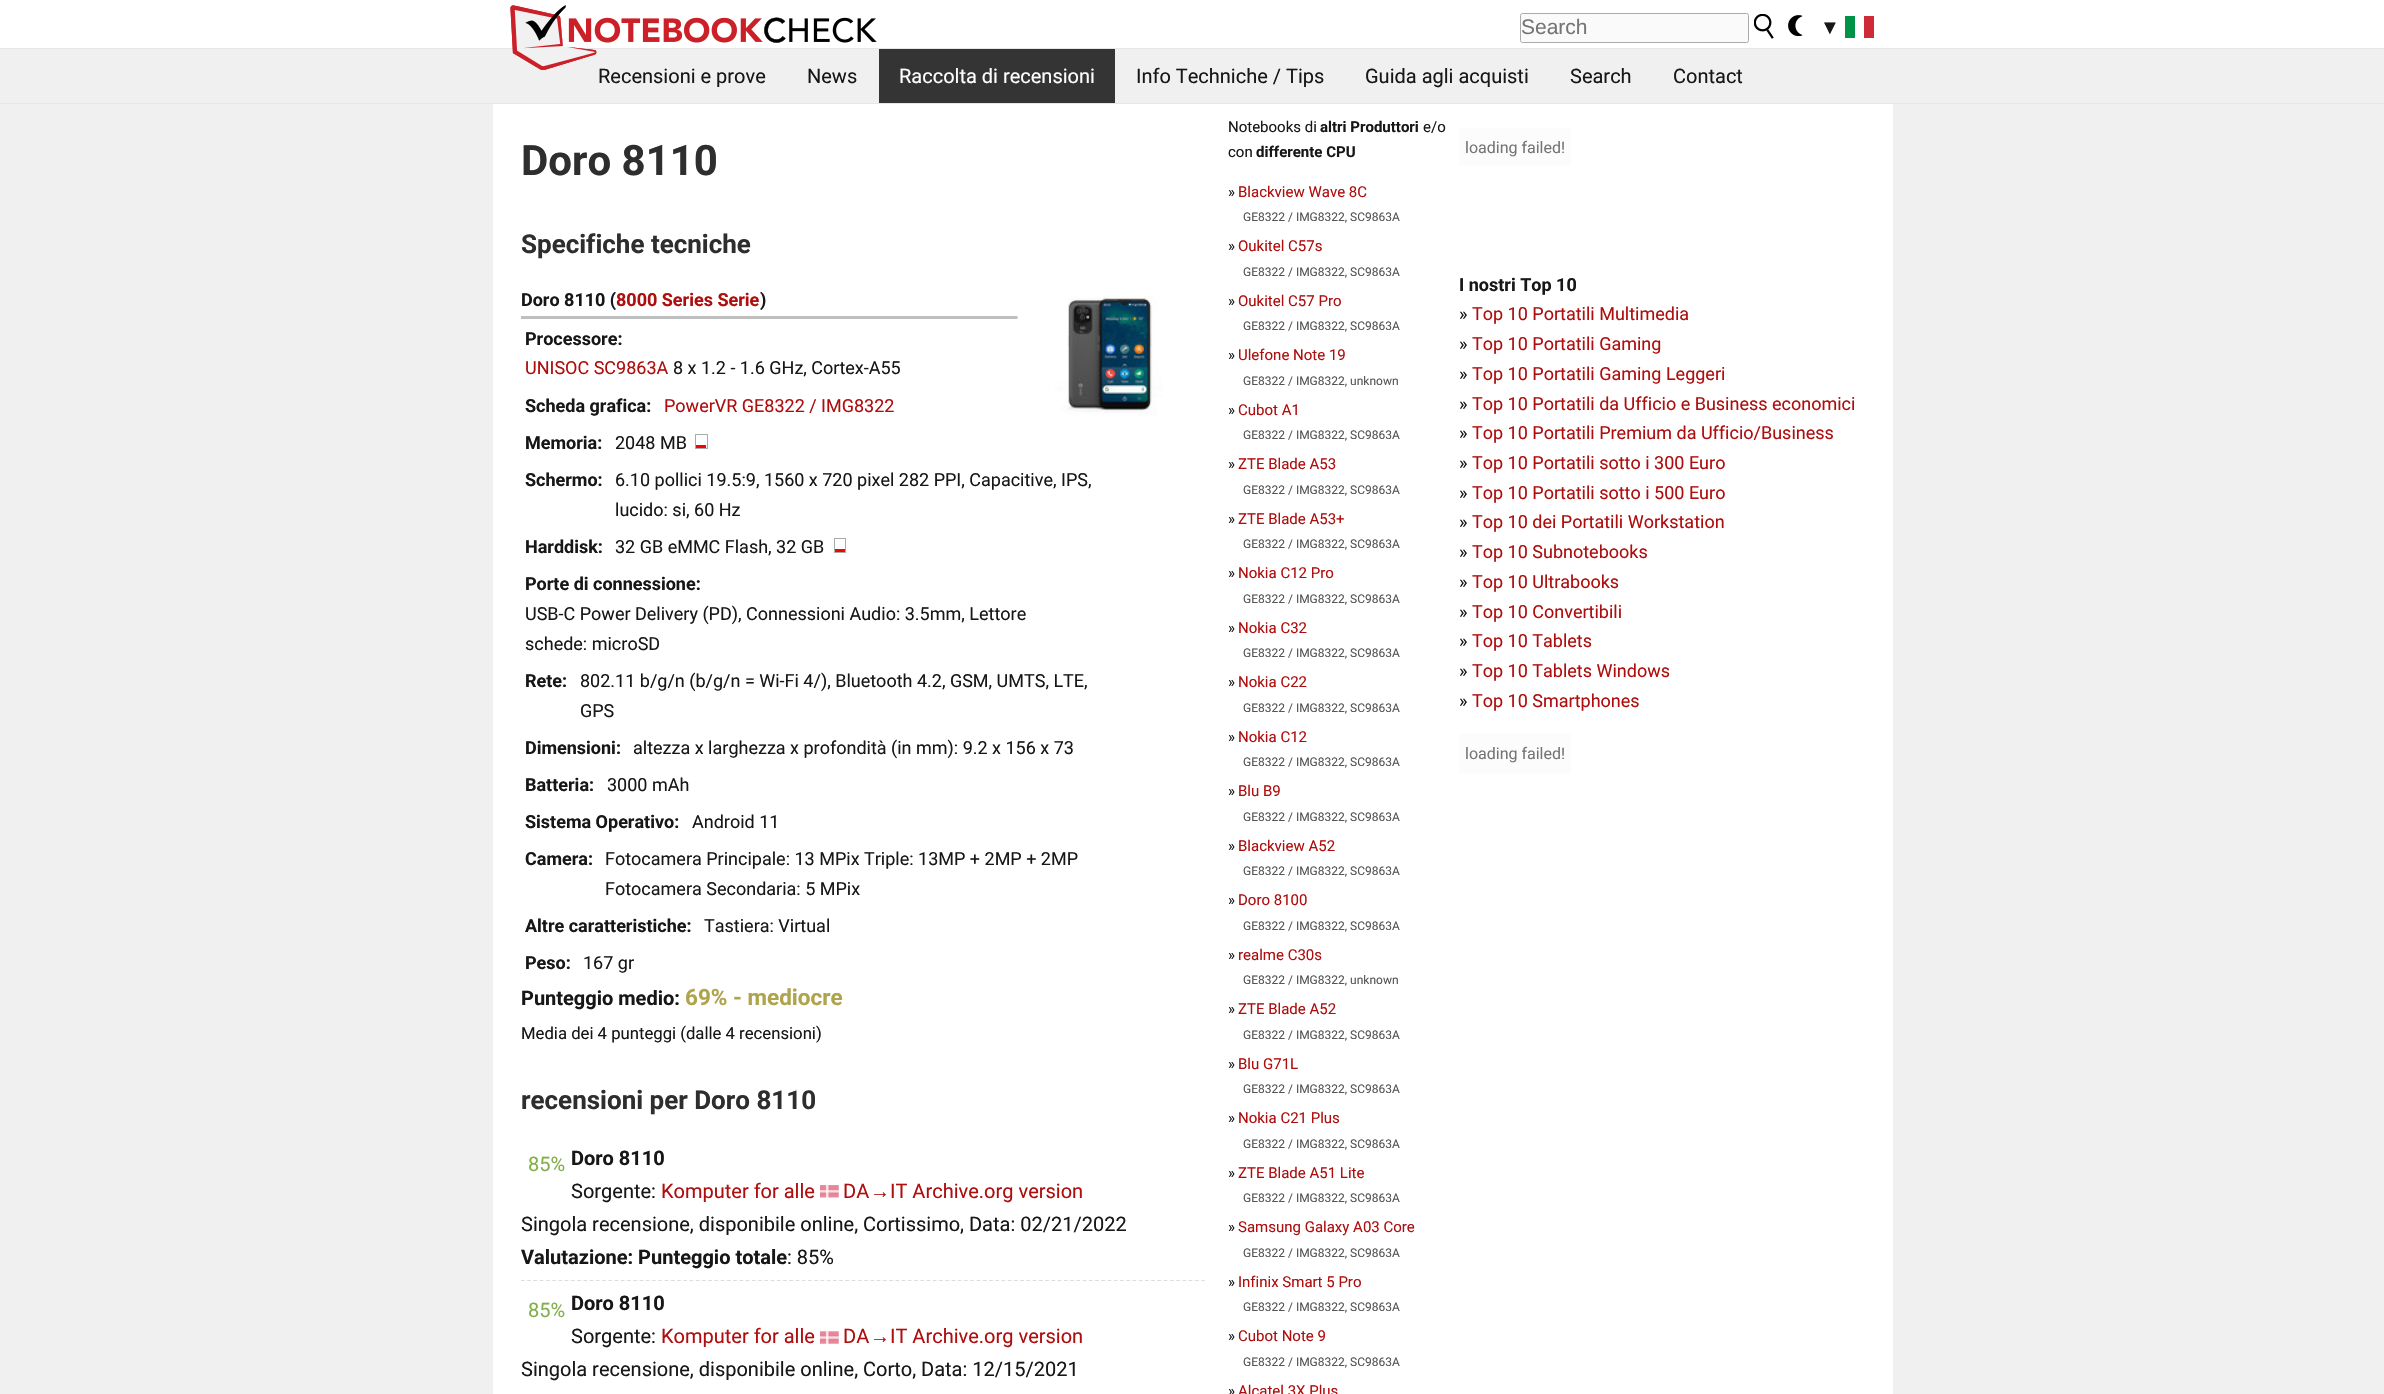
void draw(SkCanvas* canvas) {
	SkPaint paint;
	paint.setAntiAlias(true);
	auto svgPath = [&](const char* data, bool evenOdd = false) {
		SkPath result = *SkParsePath::FromSVGString(data);
		if (evenOdd) result.setFillType(SkPathFillType::kEvenOdd);
		return result;
	};
	canvas->clear(0xfff0f0f0);
	paint.setColor(0xffffffff);
	canvas->drawRect(SkRect::MakeXYWH(0, 0, 2384, 103), paint);
	canvas->drawImageRect(SkImages::DeferredFromEncodedData(SkData::MakeFromFileName("img1.png")), SkRect::MakeXYWH(510, 5, 367, 65), SkSamplingOptions());
	paint.setColor(0x0f000000);
	canvas->drawRect(SkRect::MakeXYWH(0, 48, 2384, 55), paint);
	paint.setColor(0x0a000000);
	canvas->drawRect(SkRect::MakeXYWH(0, 48, 2384, 1), paint);
	canvas->drawImageRect(SkImages::DeferredFromEncodedData(SkData::MakeFromFileName("img2.png")), SkRect::MakeXYWH(510, 5, 86, 65), SkSamplingOptions());
	paint.setColor(0xfffafafa);
	canvas->drawRoundRect(SkRect::MakeXYWH(1520.5, 13.5, 228, 29), 2, 2, paint);
	paint.setStroke(true);
	paint.setStrokeWidth(1);
	paint.setColor(0xffaaaaaa);
	canvas->drawRoundRect(SkRect::MakeXYWH(1520.5, 13.5, 228, 29), 2, 2, paint);
	SkFont f1(fontMgr->matchFamilyStyle("Liberation Sans", SkFontStyle::Normal()), 21);
	f1.setSubpixel(true);
	paint.setStroke(false);
	paint.setColor(0xff757575);
	canvas->drawString("Search", 1521, 34, f1, paint);
	canvas->drawImageRect(SkImages::DeferredFromEncodedData(SkData::MakeFromFileName("img3.png")), SkRect::MakeXYWH(1754, 14, 20, 25), SkSamplingOptions());
	canvas->drawImageRect(SkImages::DeferredFromEncodedData(SkData::MakeFromFileName("img4.png")), SkRect::MakeXYWH(1788, 15, 15, 21), SkSamplingOptions());
	SkFont f2(fontMgr->matchFamilyStyle("Liberation Sans", SkFontStyle::Normal()), 20);
	f2.setSubpixel(true);
	paint.setColor(0xff171717);
	canvas->drawString("▼", 1820, 34, f2, paint);
	paint.setColor(0xff009246);
	canvas->drawRect(SkRect::MakeXYWH(1845, 16, 10, 22), paint);
	paint.setColor(0xffce2b37);
	canvas->drawRect(SkRect::MakeXYWH(1864, 16, 10, 22), paint);
	paint.setColor(0xffe6e6e6);
	canvas->drawRect(SkRect::MakeXYWH(0, 103, 2384, 1), paint);
	SkFont f3(fontMgr->matchFamilyStyle("Roboto", SkFontStyle::Normal()), 20);
	f3.setSubpixel(true);
	paint.setColor(0xff171717);
	canvas->drawString("Recensioni e prove", 598, 83, f3, paint);
	canvas->drawString("News", 807, 83, f3, paint);
	paint.setColor(0xff343434);
	canvas->drawRect(SkRect::MakeXYWH(879, 49, 236, 54), paint);
	paint.setColor(0xffffffff);
	canvas->drawString("Raccolta di recensioni", 899, 83, f3, paint);
	paint.setColor(0xff171717);
	canvas->drawString("Info Techniche / Tips", 1136, 83, f3, paint);
	canvas->drawString("Guida agli acquisti", 1365, 83, f3, paint);
	canvas->drawString("Search", 1570, 83, f3, paint);
	canvas->drawString("Contact", 1673, 83, f3, paint);
	paint.setColor(0xffffffff);
	canvas->drawRect(SkRect::MakeXYWH(493, 104, 1400, 1290), paint);
	SkFont f4(fontMgr->matchFamilyStyle("Roboto", SkFontStyle::Bold()), 42);
	f4.setSubpixel(true);
	paint.setColor(0xff2e2e2e);
	canvas->drawString("Doro 8110", 521, 175, f4, paint);
	SkFont f5(fontMgr->matchFamilyStyle("Roboto", SkFontStyle::Bold()), 26);
	f5.setSubpixel(true);
	canvas->drawString("Specifiche tecniche", 521, 253, f5, paint);
	paint.setColor(0xffbfbfbf);
	canvas->drawRect(SkRect::MakeXYWH(521, 316, 497, 3), paint);
	SkFont f6(fontMgr->matchFamilyStyle("Roboto", SkFontStyle::Bold()), 18);
	f6.setSubpixel(true);
	paint.setColor(0xff171717);
	canvas->drawString("Doro 8110 (", 521, 306, f6, paint);
	paint.setColor(0xffaf0e0e);
	canvas->drawString("8000 Series Serie", 616, 306, f6, paint);
	paint.setColor(0xff171717);
	canvas->drawString(")", 760, 306, f6, paint);
	canvas->drawString("Processore:", 525, 345, f6, paint);
	SkFont f7(fontMgr->matchFamilyStyle("Roboto", SkFontStyle::Normal()), 18);
	f7.setSubpixel(true);
	paint.setColor(0xffaf0e0e);
	canvas->drawString("UNISOC SC9863A", 525, 374, f7, paint);
	paint.setColor(0xff171717);
	canvas->drawString("8 x 1.2 - 1.6 GHz, Cortex-A55", 673, 374, f7, paint);
	canvas->drawString("Scheda grafica:", 525, 412, f6, paint);
	paint.setColor(0xffaf0e0e);
	canvas->drawString("PowerVR GE8322 / IMG8322", 664, 412, f7, paint);
	paint.setColor(0xff171717);
	canvas->drawString("Memoria:", 525, 449, f6, paint);
	canvas->drawString("2048 MB", 615, 449, f7, paint);
	paint.setStroke(true);
	paint.setColor(0xffaaaaaa);
	canvas->drawRect(SkRect::MakeXYWH(695.5, 434.5, 12, 14), paint);
	paint.setStroke(false);
	paint.setColor(0xffff0000);
	canvas->drawRect(SkRect::MakeXYWH(696, 445, 10, 3), paint);
	paint.setColor(0xff171717);
	canvas->drawString("Schermo:", 525, 486, f6, paint);
	canvas->drawString("6.10 pollici 19.5:9, 1560 x 720 pixel 282 PPI, Capacitive, IPS,", 615, 486, f7, paint);
	canvas->drawString("lucido: si, 60 Hz", 615, 516, f7, paint);
	canvas->drawString("Harddisk:", 525, 553, f6, paint);
	canvas->drawString("32 GB eMMC Flash, 32 GB", 615, 553, f7, paint);
	paint.setStroke(true);
	paint.setColor(0xffaaaaaa);
	canvas->drawRect(SkRect::MakeXYWH(834.5, 538.5, 11, 14), paint);
	paint.setStroke(false);
	paint.setColor(0xffff0000);
	canvas->drawRect(SkRect::MakeXYWH(835, 549, 10, 3), paint);
	paint.setColor(0xff171717);
	canvas->drawString("Porte di connessione:", 525, 590, f6, paint);
	canvas->drawString("USB-C Power Delivery (PD), Connessioni Audio: 3.5mm, Lettore", 525, 620, f7, paint);
	canvas->drawString("schede: microSD", 525, 650, f7, paint);
	canvas->drawString("Rete:", 525, 687, f6, paint);
	canvas->drawString("802.11 b/g/n (b/g/n = Wi-Fi 4/), Bluetooth 4.2, GSM, UMTS, LTE,", 580, 687, f7, paint);
	canvas->drawString("GPS", 580, 717, f7, paint);
	canvas->drawString("Dimensioni:", 525, 754, f6, paint);
	canvas->drawString("altezza x larghezza x profondità (in mm): 9.2 x 156 x 73", 633, 754, f7, paint);
	canvas->drawString("Batteria:", 525, 791, f6, paint);
	canvas->drawString("3000 mAh", 607, 791, f7, paint);
	canvas->drawString("Sistema Operativo:", 525, 828, f6, paint);
	canvas->drawString("Android 11", 692, 828, f7, paint);
	canvas->drawString("Camera:", 525, 865, f6, paint);
	canvas->drawString("Fotocamera Principale: 13 MPix Triple: 13MP + 2MP + 2MP", 605, 865, f7, paint);
	canvas->drawString("Fotocamera Secondaria: 5 MPix", 605, 895, f7, paint);
	canvas->drawString("Altre caratteristiche:", 525, 932, f6, paint);
	canvas->drawString("Tastiera: Virtual", 704, 932, f7, paint);
	canvas->drawString("Peso:", 525, 969, f6, paint);
	canvas->drawString("167 gr", 583, 969, f7, paint);
	canvas->drawImageRect(SkImages::DeferredFromEncodedData(SkData::MakeFromFileName("img5.png")), SkRect::MakeXYWH(1017, 296, 188, 120), SkSamplingOptions());
	SkFont f8(fontMgr->matchFamilyStyle("Roboto", SkFontStyle::Bold()), 20);
	f8.setSubpixel(true);
	canvas->drawString("Punteggio medio:", 521, 1005, f8, paint);
	SkFont f9(fontMgr->matchFamilyStyle("Roboto", SkFontStyle::Bold()), 22.5);
	f9.setSubpixel(true);
	paint.setColor(0xffafa44b);
	canvas->drawString("69% - mediocre", 685, 1005, f9, paint);
	SkFont f10(fontMgr->matchFamilyStyle("Roboto", SkFontStyle::Normal()), 16.7);
	f10.setSubpixel(true);
	paint.setColor(0xff171717);
	canvas->drawString("Media dei 4 punteggi (dalle 4 recensioni)", 521, 1039, f10, paint);
	paint.setColor(0xff2e2e2e);
	canvas->drawString("recensioni per Doro 8110", 521, 1109, f5, paint);
	paint.setStroke(true);
	paint.setStrokeWidth(1.2);
	paint.setColor(0xffdddddd);
	paint.setPathEffect(SkDashPathEffect::Make({{3.75f, 2.49f}}, 0));
	canvas->drawPath(svgPath("M521 1280.5H1205"), paint);
	paint.setPathEffect(nullptr);
	paint.setStroke(false);
	paint.setColor(0xff83af4b);
	canvas->drawString("85%", 528, 1171, f3, paint);
	paint.setColor(0xff171717);
	canvas->drawString("Doro 8110", 571, 1165, f8, paint);
	canvas->drawString("Sorgente:", 571, 1198, f3, paint);
	paint.setColor(0xffaf0e0e);
	canvas->drawString("Komputer for alle", 661, 1198, f3, paint);
	canvas->drawImageRect(SkImages::DeferredFromEncodedData(SkData::MakeFromFileName("img6.png")), SkRect::MakeXYWH(820, 1185, 19, 13), SkSamplingOptions());
	canvas->drawString("DA", 843, 1198, f3, paint);
	canvas->drawString("→", 870, 1198, f2, paint);
	canvas->drawString("IT Archive.org version", 890, 1198, f3, paint);
	paint.setColor(0xff171717);
	canvas->drawString("Singola recensione, disponibile online, Cortissimo, Data: 02/21/2022", 521, 1231, f3, paint);
	canvas->drawString("Valutazione: Punteggio totale", 521, 1264, f8, paint);
	canvas->drawString(": 85%", 787, 1264, f3, paint);
	paint.setColor(0xff83af4b);
	canvas->drawString("85%", 528, 1317, f3, paint);
	paint.setColor(0xff171717);
	canvas->drawString("Doro 8110", 571, 1310, f8, paint);
	canvas->drawString("Sorgente:", 571, 1343, f3, paint);
	paint.setColor(0xffaf0e0e);
	canvas->drawString("Komputer for alle", 661, 1343, f3, paint);
	canvas->drawImageRect(SkImages::DeferredFromEncodedData(SkData::MakeFromFileName("img7.png")), SkRect::MakeXYWH(820, 1331, 19, 13), SkSamplingOptions());
	canvas->drawString("DA", 843, 1343, f3, paint);
	canvas->drawString("→", 870, 1343, f2, paint);
	canvas->drawString("IT Archive.org version", 890, 1343, f3, paint);
	paint.setColor(0xff171717);
	canvas->drawString("Singola recensione, disponibile online, Corto, Data: 12/15/2021", 521, 1376, f3, paint);
	SkFont f11(fontMgr->matchFamilyStyle("Roboto", SkFontStyle::Normal()), 15);
	f11.setSubpixel(true);
	canvas->drawString("Notebooks di", 1228, 132, f11, paint);
	SkFont f12(fontMgr->matchFamilyStyle("Roboto", SkFontStyle::Bold()), 15);
	f12.setSubpixel(true);
	canvas->drawString("altri Produttori", 1320, 132, f12, paint);
	canvas->drawString("e/o", 1423, 132, f11, paint);
	canvas->drawString("con", 1228, 157, f11, paint);
	canvas->drawString("differente CPU", 1256, 157, f12, paint);
	canvas->drawString("»", 1228, 197, f11, paint);
	paint.setColor(0xffaf0e0e);
	canvas->drawString("Blackview Wave 8C", 1238, 197, f11, paint);
	SkFont f13(fontMgr->matchFamilyStyle("Roboto", SkFontStyle::Normal()), 12);
	f13.setSubpixel(true);
	paint.setColor(0xff555555);
	canvas->drawString("GE8322 / IMG8322, SC9863A", 1243, 221, f13, paint);
	paint.setColor(0xff171717);
	canvas->drawString("»", 1228, 251, f11, paint);
	paint.setColor(0xffaf0e0e);
	canvas->drawString("Oukitel C57s", 1238, 251, f11, paint);
	paint.setColor(0xff555555);
	canvas->drawString("GE8322 / IMG8322, SC9863A", 1243, 276, f13, paint);
	paint.setColor(0xff171717);
	canvas->drawString("»", 1228, 306, f11, paint);
	paint.setColor(0xffaf0e0e);
	canvas->drawString("Oukitel C57 Pro", 1238, 306, f11, paint);
	paint.setColor(0xff555555);
	canvas->drawString("GE8322 / IMG8322, SC9863A", 1243, 330, f13, paint);
	paint.setColor(0xff171717);
	canvas->drawString("»", 1228, 360, f11, paint);
	paint.setColor(0xffaf0e0e);
	canvas->drawString("Ulefone Note 19", 1238, 360, f11, paint);
	paint.setColor(0xff555555);
	canvas->drawString("GE8322 / IMG8322, unknown", 1243, 385, f13, paint);
	paint.setColor(0xff171717);
	canvas->drawString("»", 1228, 415, f11, paint);
	paint.setColor(0xffaf0e0e);
	canvas->drawString("Cubot A1", 1238, 415, f11, paint);
	paint.setColor(0xff555555);
	canvas->drawString("GE8322 / IMG8322, SC9863A", 1243, 439, f13, paint);
	paint.setColor(0xff171717);
	canvas->drawString("»", 1228, 469, f11, paint);
	paint.setColor(0xffaf0e0e);
	canvas->drawString("ZTE Blade A53", 1238, 469, f11, paint);
	paint.setColor(0xff555555);
	canvas->drawString("GE8322 / IMG8322, SC9863A", 1243, 494, f13, paint);
	paint.setColor(0xff171717);
	canvas->drawString("»", 1228, 524, f11, paint);
	paint.setColor(0xffaf0e0e);
	canvas->drawString("ZTE Blade A53+", 1238, 524, f11, paint);
	paint.setColor(0xff555555);
	canvas->drawString("GE8322 / IMG8322, SC9863A", 1243, 548, f13, paint);
	paint.setColor(0xff171717);
	canvas->drawString("»", 1228, 578, f11, paint);
	paint.setColor(0xffaf0e0e);
	canvas->drawString("Nokia C12 Pro", 1238, 578, f11, paint);
	paint.setColor(0xff555555);
	canvas->drawString("GE8322 / IMG8322, SC9863A", 1243, 603, f13, paint);
	paint.setColor(0xff171717);
	canvas->drawString("»", 1228, 633, f11, paint);
	paint.setColor(0xffaf0e0e);
	canvas->drawString("Nokia C32", 1238, 633, f11, paint);
	paint.setColor(0xff555555);
	canvas->drawString("GE8322 / IMG8322, SC9863A", 1243, 657, f13, paint);
	paint.setColor(0xff171717);
	canvas->drawString("»", 1228, 687, f11, paint);
	paint.setColor(0xffaf0e0e);
	canvas->drawString("Nokia C22", 1238, 687, f11, paint);
	paint.setColor(0xff555555);
	canvas->drawString("GE8322 / IMG8322, SC9863A", 1243, 712, f13, paint);
	paint.setColor(0xff171717);
	canvas->drawString("»", 1228, 742, f11, paint);
	paint.setColor(0xffaf0e0e);
	canvas->drawString("Nokia C12", 1238, 742, f11, paint);
	paint.setColor(0xff555555);
	canvas->drawString("GE8322 / IMG8322, SC9863A", 1243, 766, f13, paint);
	paint.setColor(0xff171717);
	canvas->drawString("»", 1228, 796, f11, paint);
	paint.setColor(0xffaf0e0e);
	canvas->drawString("Blu B9", 1238, 796, f11, paint);
	paint.setColor(0xff555555);
	canvas->drawString("GE8322 / IMG8322, SC9863A", 1243, 821, f13, paint);
	paint.setColor(0xff171717);
	canvas->drawString("»", 1228, 851, f11, paint);
	paint.setColor(0xffaf0e0e);
	canvas->drawString("Blackview A52", 1238, 851, f11, paint);
	paint.setColor(0xff555555);
	canvas->drawString("GE8322 / IMG8322, SC9863A", 1243, 875, f13, paint);
	paint.setColor(0xff171717);
	canvas->drawString("»", 1228, 905, f11, paint);
	paint.setColor(0xffaf0e0e);
	canvas->drawString("Doro 8100", 1238, 905, f11, paint);
	paint.setColor(0xff555555);
	canvas->drawString("GE8322 / IMG8322, SC9863A", 1243, 930, f13, paint);
	paint.setColor(0xff171717);
	canvas->drawString("»", 1228, 960, f11, paint);
	paint.setColor(0xffaf0e0e);
	canvas->drawString("realme C30s", 1238, 960, f11, paint);
	paint.setColor(0xff555555);
	canvas->drawString("GE8322 / IMG8322, unknown", 1243, 984, f13, paint);
	paint.setColor(0xff171717);
	canvas->drawString("»", 1228, 1014, f11, paint);
	paint.setColor(0xffaf0e0e);
	canvas->drawString("ZTE Blade A52", 1238, 1014, f11, paint);
	paint.setColor(0xff555555);
	canvas->drawString("GE8322 / IMG8322, SC9863A", 1243, 1039, f13, paint);
	paint.setColor(0xff171717);
	canvas->drawString("»", 1228, 1069, f11, paint);
	paint.setColor(0xffaf0e0e);
	canvas->drawString("Blu G71L", 1238, 1069, f11, paint);
	paint.setColor(0xff555555);
	canvas->drawString("GE8322 / IMG8322, SC9863A", 1243, 1093, f13, paint);
	paint.setColor(0xff171717);
	canvas->drawString("»", 1228, 1123, f11, paint);
	paint.setColor(0xffaf0e0e);
	canvas->drawString("Nokia C21 Plus", 1238, 1123, f11, paint);
	paint.setColor(0xff555555);
	canvas->drawString("GE8322 / IMG8322, SC9863A", 1243, 1148, f13, paint);
	paint.setColor(0xff171717);
	canvas->drawString("»", 1228, 1178, f11, paint);
	paint.setColor(0xffaf0e0e);
	canvas->drawString("ZTE Blade A51 Lite", 1238, 1178, f11, paint);
	paint.setColor(0xff555555);
	canvas->drawString("GE8322 / IMG8322, SC9863A", 1243, 1202, f13, paint);
	paint.setColor(0xff171717);
	canvas->drawString("»", 1228, 1232, f11, paint);
	paint.setColor(0xffaf0e0e);
	canvas->drawString("Samsung Galaxy A03 Core", 1238, 1232, f11, paint);
	paint.setColor(0xff555555);
	canvas->drawString("GE8322 / IMG8322, SC9863A", 1243, 1257, f13, paint);
	paint.setColor(0xff171717);
	canvas->drawString("»", 1228, 1287, f11, paint);
	paint.setColor(0xffaf0e0e);
	canvas->drawString("Infinix Smart 5 Pro", 1238, 1287, f11, paint);
	paint.setColor(0xff555555);
	canvas->drawString("GE8322 / IMG8322, SC9863A", 1243, 1311, f13, paint);
	paint.setColor(0xff171717);
	canvas->drawString("»", 1228, 1341, f11, paint);
	paint.setColor(0xffaf0e0e);
	canvas->drawString("Cubot Note 9", 1238, 1341, f11, paint);
	paint.setColor(0xff555555);
	canvas->drawString("GE8322 / IMG8322, SC9863A", 1243, 1366, f13, paint);
	paint.setColor(0xff171717);
	canvas->drawString("»", 1228, 1396, f11, paint);
	paint.setColor(0xffaf0e0e);
	canvas->drawString("Alcatel 3X Plus", 1238, 1396, f11, paint);
	paint.setColor(0xfffcfcfc);
	canvas->drawRect(SkRect::MakeXYWH(1459, 128, 112, 38), paint);
	SkFont f14(fontMgr->matchFamilyStyle("Roboto", SkFontStyle::Normal()), 16);
	f14.setSubpixel(true);
	paint.setColor(0xff757575);
	canvas->drawString("loading failed!", 1465, 153, f14, paint);
	paint.setColor(0xff171717);
	canvas->drawString("I nostri Top 10", 1459, 291, f6, paint);
	canvas->drawString("»", 1459, 320, f7, paint);
	paint.setColor(0xffaf0e0e);
	canvas->drawString("Top 10 Portatili Multimedia", 1472, 320, f7, paint);
	paint.setColor(0xff171717);
	canvas->drawString("»", 1459, 350, f7, paint);
	paint.setColor(0xffaf0e0e);
	canvas->drawString("Top 10 Portatili Gaming", 1472, 350, f7, paint);
	paint.setColor(0xff171717);
	canvas->drawString("»", 1459, 380, f7, paint);
	paint.setColor(0xffaf0e0e);
	canvas->drawString("Top 10 Portatili Gaming Leggeri", 1472, 380, f7, paint);
	paint.setColor(0xff171717);
	canvas->drawString("»", 1459, 410, f7, paint);
	paint.setColor(0xffaf0e0e);
	canvas->drawString("Top 10 Portatili da Ufficio e Business economici", 1472, 410, f7, paint);
	paint.setColor(0xff171717);
	canvas->drawString("»", 1459, 439, f7, paint);
	paint.setColor(0xffaf0e0e);
	canvas->drawString("Top 10 Portatili Premium da Ufficio/Business", 1472, 439, f7, paint);
	paint.setColor(0xff171717);
	canvas->drawString("»", 1459, 469, f7, paint);
	paint.setColor(0xffaf0e0e);
	canvas->drawString("Top 10 Portatili sotto i 300 Euro", 1472, 469, f7, paint);
	paint.setColor(0xff171717);
	canvas->drawString("»", 1459, 499, f7, paint);
	paint.setColor(0xffaf0e0e);
	canvas->drawString("Top 10 Portatili sotto i 500 Euro", 1472, 499, f7, paint);
	paint.setColor(0xff171717);
	canvas->drawString("»", 1459, 528, f7, paint);
	paint.setColor(0xffaf0e0e);
	canvas->drawString("Top 10 dei Portatili Workstation", 1472, 528, f7, paint);
	paint.setColor(0xff171717);
	canvas->drawString("»", 1459, 558, f7, paint);
	paint.setColor(0xffaf0e0e);
	canvas->drawString("Top 10 Subnotebooks", 1472, 558, f7, paint);
	paint.setColor(0xff171717);
	canvas->drawString("»", 1459, 588, f7, paint);
	paint.setColor(0xffaf0e0e);
	canvas->drawString("Top 10 Ultrabooks", 1472, 588, f7, paint);
	paint.setColor(0xff171717);
	canvas->drawString("»", 1459, 618, f7, paint);
	paint.setColor(0xffaf0e0e);
	canvas->drawString("Top 10 Convertibili", 1472, 618, f7, paint);
	paint.setColor(0xff171717);
	canvas->drawString("»", 1459, 647, f7, paint);
	paint.setColor(0xffaf0e0e);
	canvas->drawString("Top 10 Tablets", 1472, 647, f7, paint);
	paint.setColor(0xff171717);
	canvas->drawString("»", 1459, 677, f7, paint);
	paint.setColor(0xffaf0e0e);
	canvas->drawString("Top 10 Tablets Windows", 1472, 677, f7, paint);
	paint.setColor(0xff171717);
	canvas->drawString("»", 1459, 707, f7, paint);
	paint.setColor(0xffaf0e0e);
	canvas->drawString("Top 10 Smartphones", 1472, 707, f7, paint);
	paint.setColor(0xfffcfcfc);
	canvas->drawRect(SkRect::MakeXYWH(1459, 734, 112, 40), paint);
	paint.setColor(0xff757575);
	canvas->drawString("loading failed!", 1465, 759, f14, paint);
}
